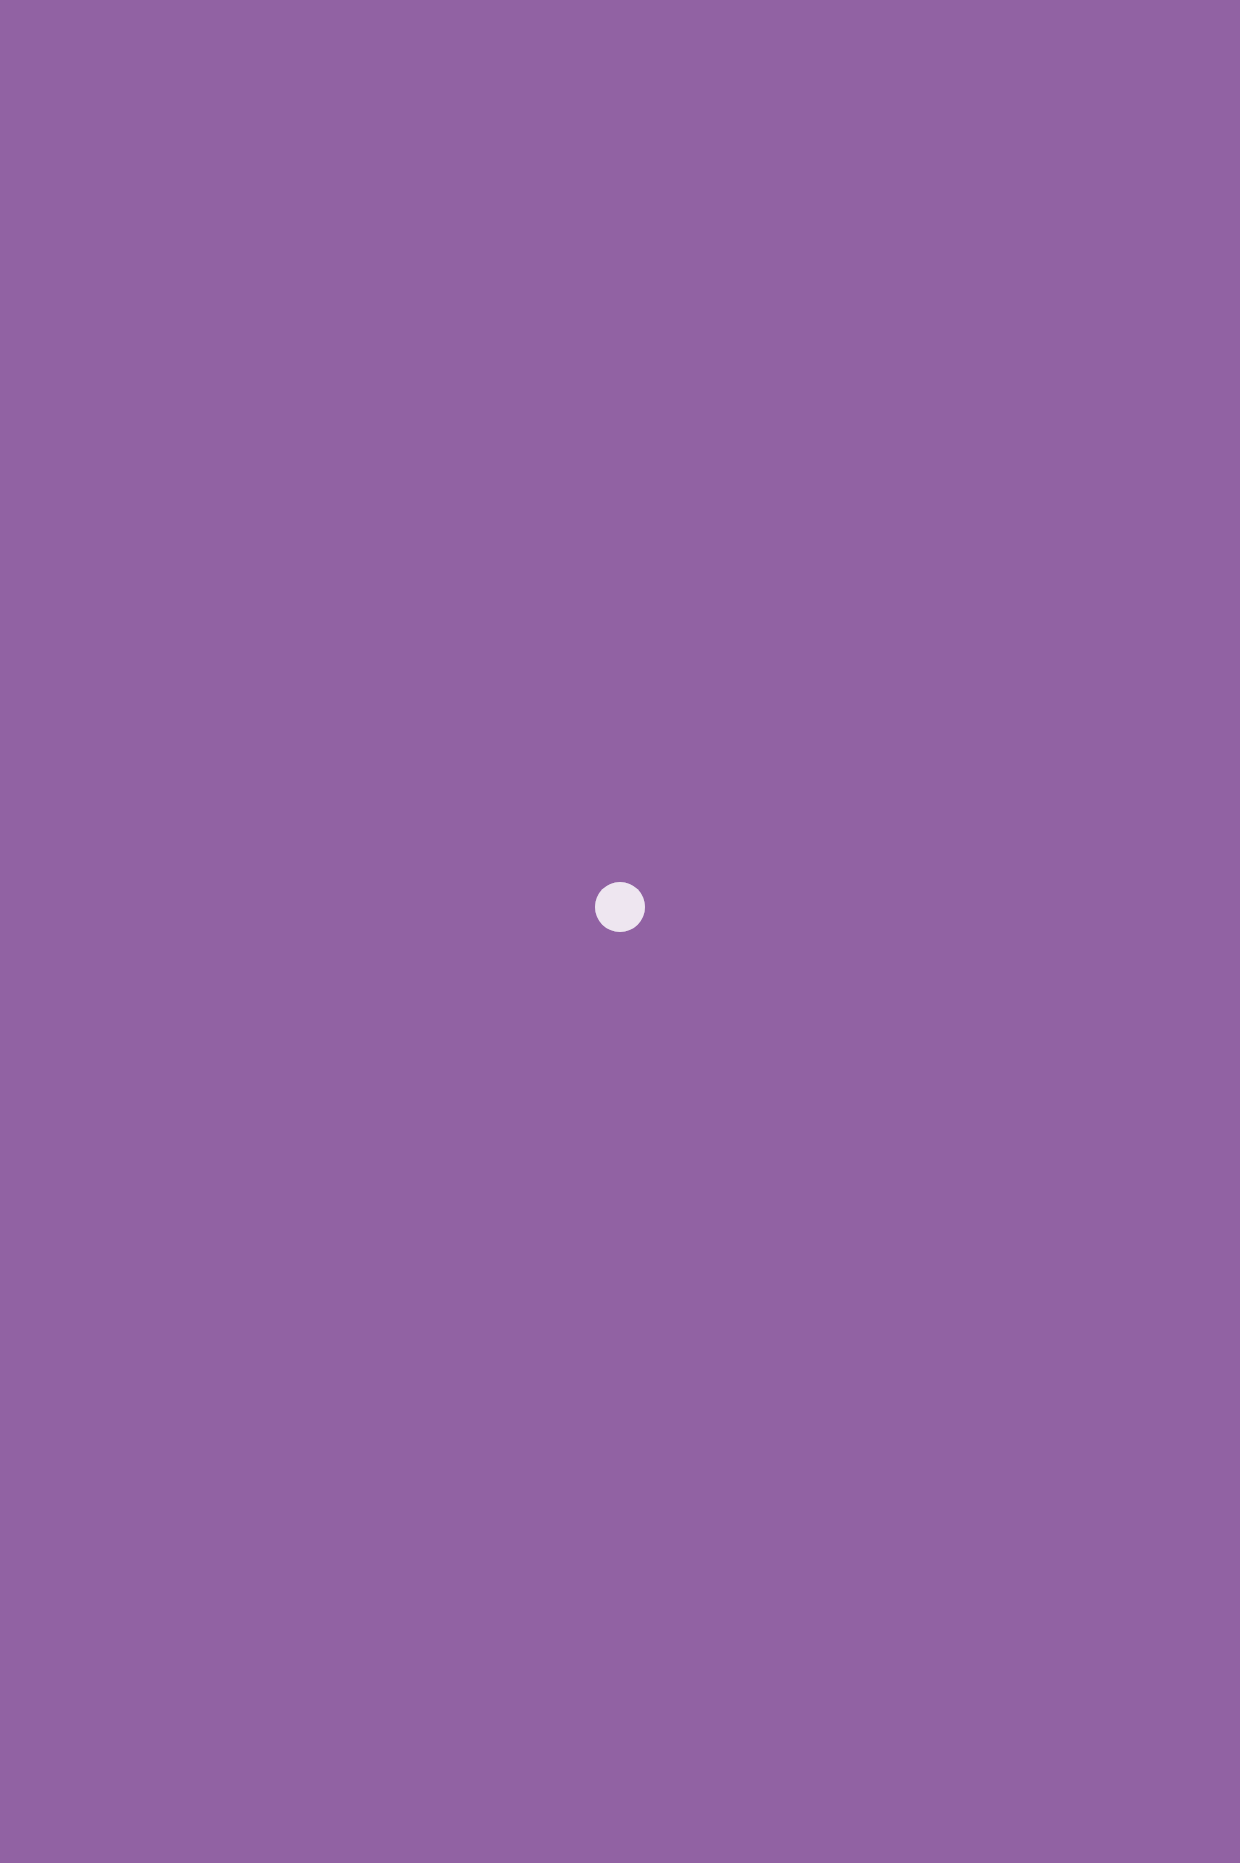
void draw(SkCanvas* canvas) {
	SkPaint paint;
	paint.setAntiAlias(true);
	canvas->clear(0xff9162a3);
	paint.setColor(0xffd3c0da);
	canvas->drawCircle(620, 907, 25, paint);
	paint.setColor(0x99ffffff);
	canvas->drawCircle(620, 907, 25, paint);
}
